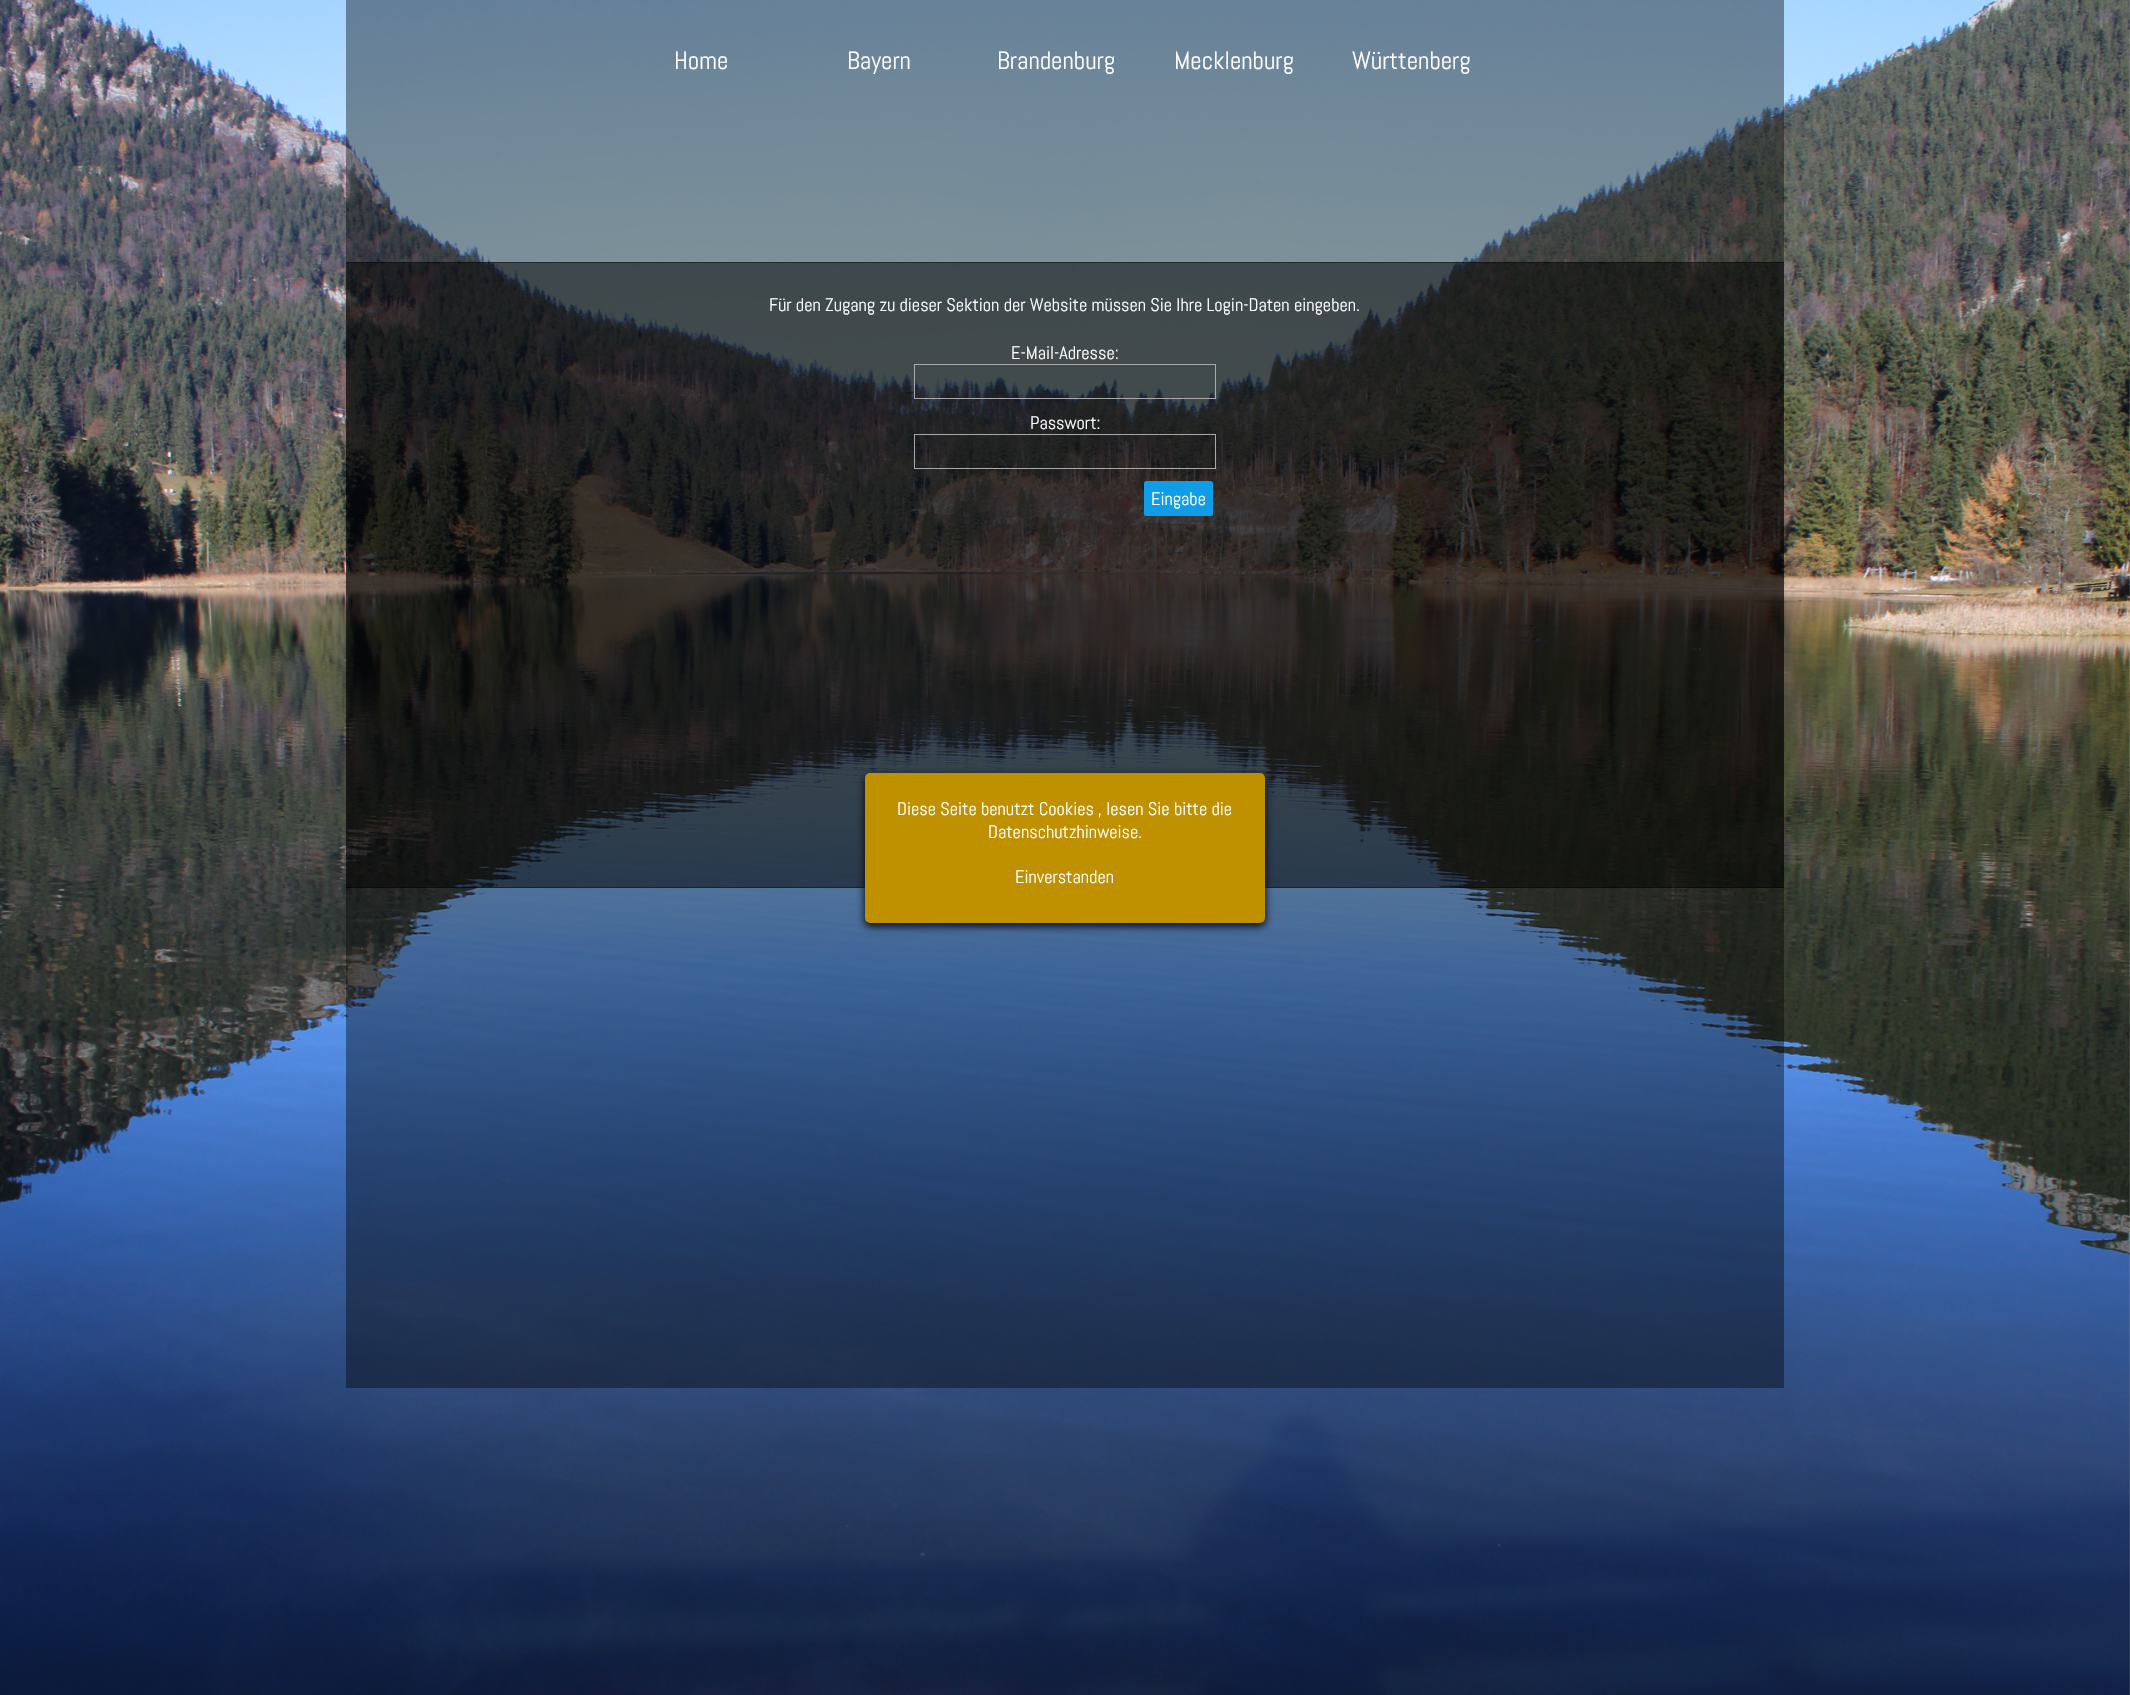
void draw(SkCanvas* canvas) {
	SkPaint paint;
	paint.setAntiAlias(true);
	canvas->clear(0xffffffff);
	canvas->drawImageRect(SkImages::DeferredFromEncodedData(SkData::MakeFromFileName("img1.png")), SkRect::MakeXYWH(0, 0, 2130, 1695), SkSamplingOptions());
	paint.setColor(0x66000000);
	canvas->drawRect(SkRect::MakeXYWH(346, 0, 1438, 263), paint);
	SkFont f1(fontMgr->matchFamilyStyle("Abel", SkFontStyle::Normal()), 25);
	f1.setSubpixel(true);
	paint.setColor(0xffffffff);
	canvas->drawString("Home", 674, 69, f1, paint);
	canvas->drawString("Bayern", 847, 69, f1, paint);
	canvas->drawString("Brandenburg", 997, 69, f1, paint);
	canvas->drawString("Mecklenburg", 1174, 69, f1, paint);
	canvas->drawString("Württenberg", 1352, 69, f1, paint);
	paint.setColor(0xb3000000);
	canvas->drawRect(SkRect::MakeXYWH(346, 262, 1438, 626), paint);
	SkFont f2(fontMgr->matchFamilyStyle("Abel", SkFontStyle::Normal()), 18.3);
	f2.setSubpixel(true);
	paint.setColor(0xffffffff);
	canvas->drawString("Für den Zugang zu dieser Sektion der Website müssen Sie Ihre Login-Daten eingeben.", 769, 311, f2, paint);
	canvas->drawString("E-Mail-Adresse:", 1011, 359, f2, paint);
	paint.setStroke(true);
	paint.setStrokeWidth(1);
	paint.setColor(0xffa9a9a9);
	canvas->drawRect(SkRect::MakeXYWH(914.5, 364.5, 301, 34), paint);
	paint.setStroke(false);
	paint.setColor(0xffffffff);
	canvas->drawString("Passwort:", 1030, 429, f2, paint);
	paint.setStroke(true);
	paint.setColor(0xffa9a9a9);
	canvas->drawRect(SkRect::MakeXYWH(914.5, 434.5, 301, 34), paint);
	paint.setStroke(false);
	paint.setColor(0xff0f9de8);
	canvas->drawRoundRect(SkRect::MakeXYWH(1144, 481, 69, 35), 2.5, 2.5, paint);
	paint.setColor(0xffffffff);
	canvas->drawString("Eingabe", 1151, 505, f2, paint);
	paint.setColor(0x66000000);
	canvas->drawRect(SkRect::MakeXYWH(346, 887, 1438, 501), paint);
	paint.setColor(0xff000000);
	paint.setMaskFilter(SkMaskFilter::MakeBlur(kNormal_SkBlurStyle, 4.5));
	canvas->drawRoundRect(SkRect::MakeXYWH(865, 776, 400, 150), 5, 5, paint);
	paint.setMaskFilter(nullptr);
	paint.setColor(0xffbf9000);
	canvas->drawRoundRect(SkRect::MakeXYWH(865, 773, 400, 150), 5, 5, paint);
	paint.setColor(0xffffffff);
	canvas->drawString("Diese Seite benutzt Cookies , lesen Sie bitte die", 897, 815, f2, paint);
	canvas->drawString("Datenschutzhinweise.", 988, 838, f2, paint);
	canvas->drawString("Einverstanden", 1015, 883, f2, paint);
}
